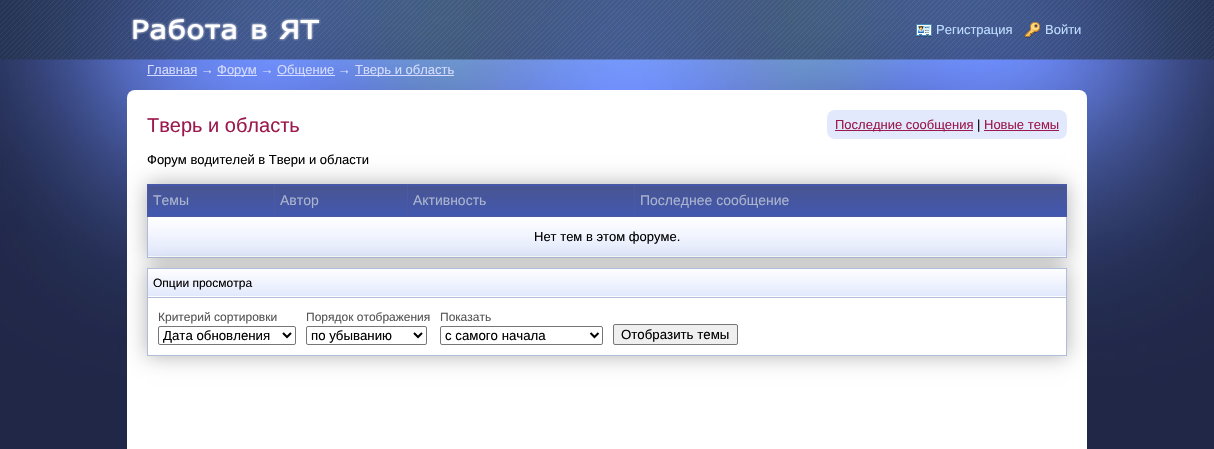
void draw(SkCanvas* canvas) {
	SkPaint paint;
	paint.setAntiAlias(true);
	auto svgPath = [&](const char* data, bool evenOdd = false) {
		SkPath result = *SkParsePath::FromSVGString(data);
		if (evenOdd) result.setFillType(SkPathFillType::kEvenOdd);
		return result;
	};
	canvas->clear(0xff212747);
	canvas->drawImageRect(SkImages::DeferredFromEncodedData(SkData::MakeFromFileName("img1.png")), SkRect::MakeXYWH(0, 0, 1214, 408), SkSamplingOptions());
	canvas->drawImageRect(SkImages::DeferredFromEncodedData(SkData::MakeFromFileName("img2.png")), SkRect::MakeXYWH(0, 0, 1214, 60), SkSamplingOptions());
	canvas->drawImageRect(SkImages::DeferredFromEncodedData(SkData::MakeFromFileName("img3.png")), SkRect::MakeXYWH(131, 17, 190, 25), SkSamplingOptions());
	canvas->drawImageRect(SkImages::DeferredFromEncodedData(SkData::MakeFromFileName("img4.png")), SkRect::MakeXYWH(916, 24, 16, 13), SkSamplingOptions());
	SkFont f1(fontMgr->matchFamilyStyle("Liberation Sans", SkFontStyle::Normal()), 13);
	f1.setSubpixel(true);
	paint.setColor(0xffbfdeff);
	canvas->drawString("Регистрация", 936, 34, f1, paint);
	canvas->drawImageRect(SkImages::DeferredFromEncodedData(SkData::MakeFromFileName("img5.png")), SkRect::MakeXYWH(1025, 22, 15, 16), SkSamplingOptions());
	canvas->drawString("Войти", 1045, 34, f1, paint);
	paint.setColor(0xffd5dcff);
	canvas->drawString("Главная →", 147, 74, f1, paint);
	canvas->drawRect(SkRect::MakeXYWH(147, 75, 50, 1), paint);
	canvas->drawRect(SkRect::MakeXYWH(217, 75, 40, 1), paint);
	canvas->drawString("Форум →", 217, 74, f1, paint);
	canvas->drawRect(SkRect::MakeXYWH(277, 75, 58, 1), paint);
	canvas->drawString("Общение →", 277, 74, f1, paint);
	canvas->drawRect(SkRect::MakeXYWH(355, 75, 99, 1), paint);
	canvas->drawString("Тверь и область", 355, 74, f1, paint);
	paint.setColor(0xffffffff);
	canvas->drawRoundRect(SkRect::MakeXYWH(127, 90, 960, 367), 8, 8, paint);
	SkFont f2(fontMgr->matchFamilyStyle("Liberation Sans", SkFontStyle::Normal()), 20);
	f2.setSubpixel(true);
	paint.setColor(0xff9c194d);
	canvas->drawString("Тверь и область", 147, 132, f2, paint);
	paint.setColor(0xffe2e9fd);
	canvas->drawRoundRect(SkRect::MakeXYWH(827, 110, 240, 29), 8, 8, paint);
	paint.setColor(0xff9c194d);
	canvas->drawRect(SkRect::MakeXYWH(835, 130, 138, 1), paint);
	canvas->drawString("Последние сообщения", 835, 129, f1, paint);
	paint.setColor(0xff000000);
	canvas->drawString("|", 977, 129, f1, paint);
	paint.setColor(0xff9c194d);
	canvas->drawString("Новые темы", 984, 129, f1, paint);
	canvas->drawRect(SkRect::MakeXYWH(984, 130, 75, 1), paint);
	paint.setColor(0x4d000000);
	paint.setMaskFilter(SkMaskFilter::MakeBlur(kNormal_SkBlurStyle, 10));
	canvas->drawRect(SkRect::MakeXYWH(147, 184, 920, 74), paint);
	paint.setMaskFilter(nullptr);
	paint.setColor(0xff000000);
	canvas->drawString("Форум водителей в Твери и области", 147, 164, f1, paint);
	{
		const SkColor colors[] = {0xffe2e9fd, 0xffffffff};
		const float stops[] = {0, 1};
		const SkPoint ends[] = {{148, 295}, {148, 256}};
		paint.setShader(SkGradientShader::MakeLinear(ends, colors, stops, 2, SkTileMode::kClamp));
		paint.setAlpha(255);
	}
	canvas->drawRect(SkRect::MakeXYWH(148, 256, 919, 1), paint);
	paint.setShader(nullptr);
	paint.setColor(0xffafbddb);
	canvas->drawRect(SkRect::MakeXYWH(1066, 217, 1, 41), paint);
	canvas->drawRect(SkRect::MakeXYWH(147, 257, 920, 1), paint);
	canvas->drawRect(SkRect::MakeXYWH(147, 217, 1, 41), paint);
	paint.setColor(0xff4258af);
	canvas->drawRect(SkRect::MakeXYWH(148, 185, 126, 1), paint);
	{
		const SkColor colors[] = {0xff4258af, 0xff495591};
		const float stops[] = {0, 1};
		const SkPoint ends[] = {{149, 216}, {149, 186}};
		paint.setShader(SkGradientShader::MakeLinear(ends, colors, stops, 2, SkTileMode::kClamp));
		paint.setAlpha(255);
	}
	canvas->drawRect(SkRect::MakeXYWH(148, 186, 126, 30), paint);
	paint.setShader(nullptr);
	paint.setColor(0xff4d58a3);
	canvas->drawRect(SkRect::MakeXYWH(634, 184, 433, 1), paint);
	canvas->drawRect(SkRect::MakeXYWH(1066, 184, 1, 33), paint);
	canvas->drawRect(SkRect::MakeXYWH(634, 216, 433, 1), paint);
	canvas->drawRect(SkRect::MakeXYWH(634, 184, 1, 33), paint);
	canvas->drawRect(SkRect::MakeXYWH(407, 184, 228, 1), paint);
	canvas->drawRect(SkRect::MakeXYWH(407, 216, 228, 1), paint);
	canvas->drawRect(SkRect::MakeXYWH(407, 184, 1, 33), paint);
	canvas->drawRect(SkRect::MakeXYWH(274, 184, 134, 1), paint);
	canvas->drawRect(SkRect::MakeXYWH(274, 216, 134, 1), paint);
	canvas->drawRect(SkRect::MakeXYWH(274, 184, 1, 33), paint);
	canvas->drawRect(SkRect::MakeXYWH(147, 184, 128, 1), paint);
	canvas->drawRect(SkRect::MakeXYWH(147, 216, 128, 1), paint);
	canvas->drawRect(SkRect::MakeXYWH(147, 184, 1, 33), paint);
	SkFont f3(fontMgr->matchFamilyStyle("Liberation Sans", SkFontStyle::Normal()), 14);
	f3.setSubpixel(true);
	paint.setColor(0xffabb4ce);
	canvas->drawString("Темы", 153, 205, f3, paint);
	paint.setColor(0xff4258af);
	canvas->drawRect(SkRect::MakeXYWH(275, 185, 132, 1), paint);
	{
		const SkColor colors[] = {0xff4258af, 0xff495591};
		const float stops[] = {0, 1};
		const SkPoint ends[] = {{275, 216}, {275, 186}};
		paint.setShader(SkGradientShader::MakeLinear(ends, colors, stops, 2, SkTileMode::kClamp));
		paint.setAlpha(255);
	}
	canvas->drawRect(SkRect::MakeXYWH(275, 186, 132, 30), paint);
	paint.setShader(nullptr);
	paint.setColor(0xffabb4ce);
	canvas->drawString("Автор", 280, 205, f3, paint);
	paint.setColor(0xff4258af);
	canvas->drawRect(SkRect::MakeXYWH(408, 185, 226, 1), paint);
	{
		const SkColor colors[] = {0xff4258af, 0xff495591};
		const float stops[] = {0, 1};
		const SkPoint ends[] = {{409, 216}, {409, 186}};
		paint.setShader(SkGradientShader::MakeLinear(ends, colors, stops, 2, SkTileMode::kClamp));
		paint.setAlpha(255);
	}
	canvas->drawRect(SkRect::MakeXYWH(408, 186, 226, 30), paint);
	paint.setShader(nullptr);
	paint.setColor(0xffabb4ce);
	canvas->drawString("Активность", 413, 205, f3, paint);
	paint.setColor(0xff4258af);
	canvas->drawRect(SkRect::MakeXYWH(635, 185, 431, 1), paint);
	{
		const SkColor colors[] = {0xff4258af, 0xff495591};
		const float stops[] = {0, 1};
		const SkPoint ends[] = {{636, 216}, {636, 186}};
		paint.setShader(SkGradientShader::MakeLinear(ends, colors, stops, 2, SkTileMode::kClamp));
		paint.setAlpha(255);
	}
	canvas->drawRect(SkRect::MakeXYWH(635, 186, 431, 30), paint);
	paint.setShader(nullptr);
	paint.setColor(0xffabb4ce);
	canvas->drawString("Последнее сообщение", 640, 205, f3, paint);
	{
		const SkColor colors[] = {0xffe2e9fd, 0xffffffff};
		const float stops[] = {0, 1};
		const SkPoint ends[] = {{148, 256}, {148, 217}};
		paint.setShader(SkGradientShader::MakeLinear(ends, colors, stops, 2, SkTileMode::kClamp));
		paint.setAlpha(255);
	}
	canvas->drawRect(SkRect::MakeXYWH(148, 217, 918, 39), paint);
	canvas->save();
	canvas->clipPath(svgPath("M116 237H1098V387H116ZM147 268H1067V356H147Z", true), true);
	paint.setShader(nullptr);
	paint.setColor(0x4d000000);
	paint.setMaskFilter(SkMaskFilter::MakeBlur(kNormal_SkBlurStyle, 10));
	canvas->drawRect(SkRect::MakeXYWH(147, 268, 920, 88), paint);
	paint.setMaskFilter(nullptr);
	canvas->restore();
	paint.setColor(0xff000000);
	canvas->drawString("Нет тем в этом форуме.", 534, 241, f1, paint);
	paint.setColor(0xffafbddb);
	canvas->drawRect(SkRect::MakeXYWH(147, 268, 920, 1), paint);
	canvas->drawRect(SkRect::MakeXYWH(1066, 268, 1, 88), paint);
	canvas->drawRect(SkRect::MakeXYWH(147, 355, 920, 1), paint);
	canvas->drawRect(SkRect::MakeXYWH(147, 268, 1, 88), paint);
	{
		const SkColor colors[] = {0xffe2e9fd, 0xffffffff};
		const float stops[] = {0, 1};
		const SkPoint ends[] = {{148, 296}, {148, 268}};
		paint.setShader(SkGradientShader::MakeLinear(ends, colors, stops, 2, SkTileMode::kClamp));
		paint.setAlpha(255);
	}
	canvas->drawRect(SkRect::MakeXYWH(148, 269, 918, 27), paint);
	paint.setShader(nullptr);
	paint.setColor(0xffafbddb);
	canvas->drawRect(SkRect::MakeXYWH(147, 297, 920, 1), paint);
	SkFont f4(fontMgr->matchFamilyStyle("Liberation Sans", SkFontStyle::Normal()), 12);
	f4.setSubpixel(true);
	paint.setColor(0xff000000);
	canvas->drawString("Опции просмотра", 153, 287, f4, paint);
	paint.setColor(0xff555555);
	canvas->drawString("Критерий сортировки", 158, 321, f4, paint);
	paint.setStroke(true);
	paint.setStrokeWidth(1);
	paint.setColor(0xff767676);
	canvas->drawRoundRect(SkRect::MakeXYWH(158.5, 326.5, 137, 18), 1.5, 1.5, paint);
	paint.setStrokeWidth(2);
	paint.setColor(0xff000000);
	canvas->drawPath(svgPath("M283 333L287 337L291 333"), paint);
	SkFont f5(fontMgr->matchFamilyStyle("Liberation Sans", SkFontStyle::Normal()), 13.25);
	f5.setSubpixel(true);
	paint.setStroke(false);
	canvas->drawString("Дата обновления", 163, 340, f5, paint);
	paint.setColor(0xff555555);
	canvas->drawString("Порядок отображения", 306, 321, f4, paint);
	paint.setStroke(true);
	paint.setStrokeWidth(1);
	paint.setColor(0xff767676);
	canvas->drawRoundRect(SkRect::MakeXYWH(306.5, 326.5, 120, 18), 1.5, 1.5, paint);
	paint.setStrokeWidth(2);
	paint.setColor(0xff000000);
	canvas->drawPath(svgPath("M414 333L418 337L422 333"), paint);
	paint.setStroke(false);
	canvas->drawString("по убыванию", 311, 340, f5, paint);
	paint.setColor(0xff555555);
	canvas->drawString("Показать", 440, 321, f4, paint);
	paint.setStroke(true);
	paint.setStrokeWidth(1);
	paint.setColor(0xff767676);
	canvas->drawRoundRect(SkRect::MakeXYWH(440.5, 326.5, 162, 18), 1.5, 1.5, paint);
	paint.setStrokeWidth(2);
	paint.setColor(0xff000000);
	canvas->drawPath(svgPath("M590.5 333L594.5 337L598.5 333"), paint);
	paint.setStroke(false);
	canvas->drawString("с самого начала", 445, 340, f5, paint);
	paint.setColor(0xffefefef);
	canvas->drawRoundRect(SkRect::MakeXYWH(613.5, 324.5, 124, 20), 1.5, 1.5, paint);
	paint.setStroke(true);
	paint.setStrokeWidth(1);
	paint.setColor(0xff767676);
	canvas->drawRoundRect(SkRect::MakeXYWH(613.5, 324.5, 124, 20), 1.5, 1.5, paint);
	paint.setStroke(false);
	paint.setColor(0xff000000);
	canvas->drawString("Отобразить темы", 621, 339, f5, paint);
}
